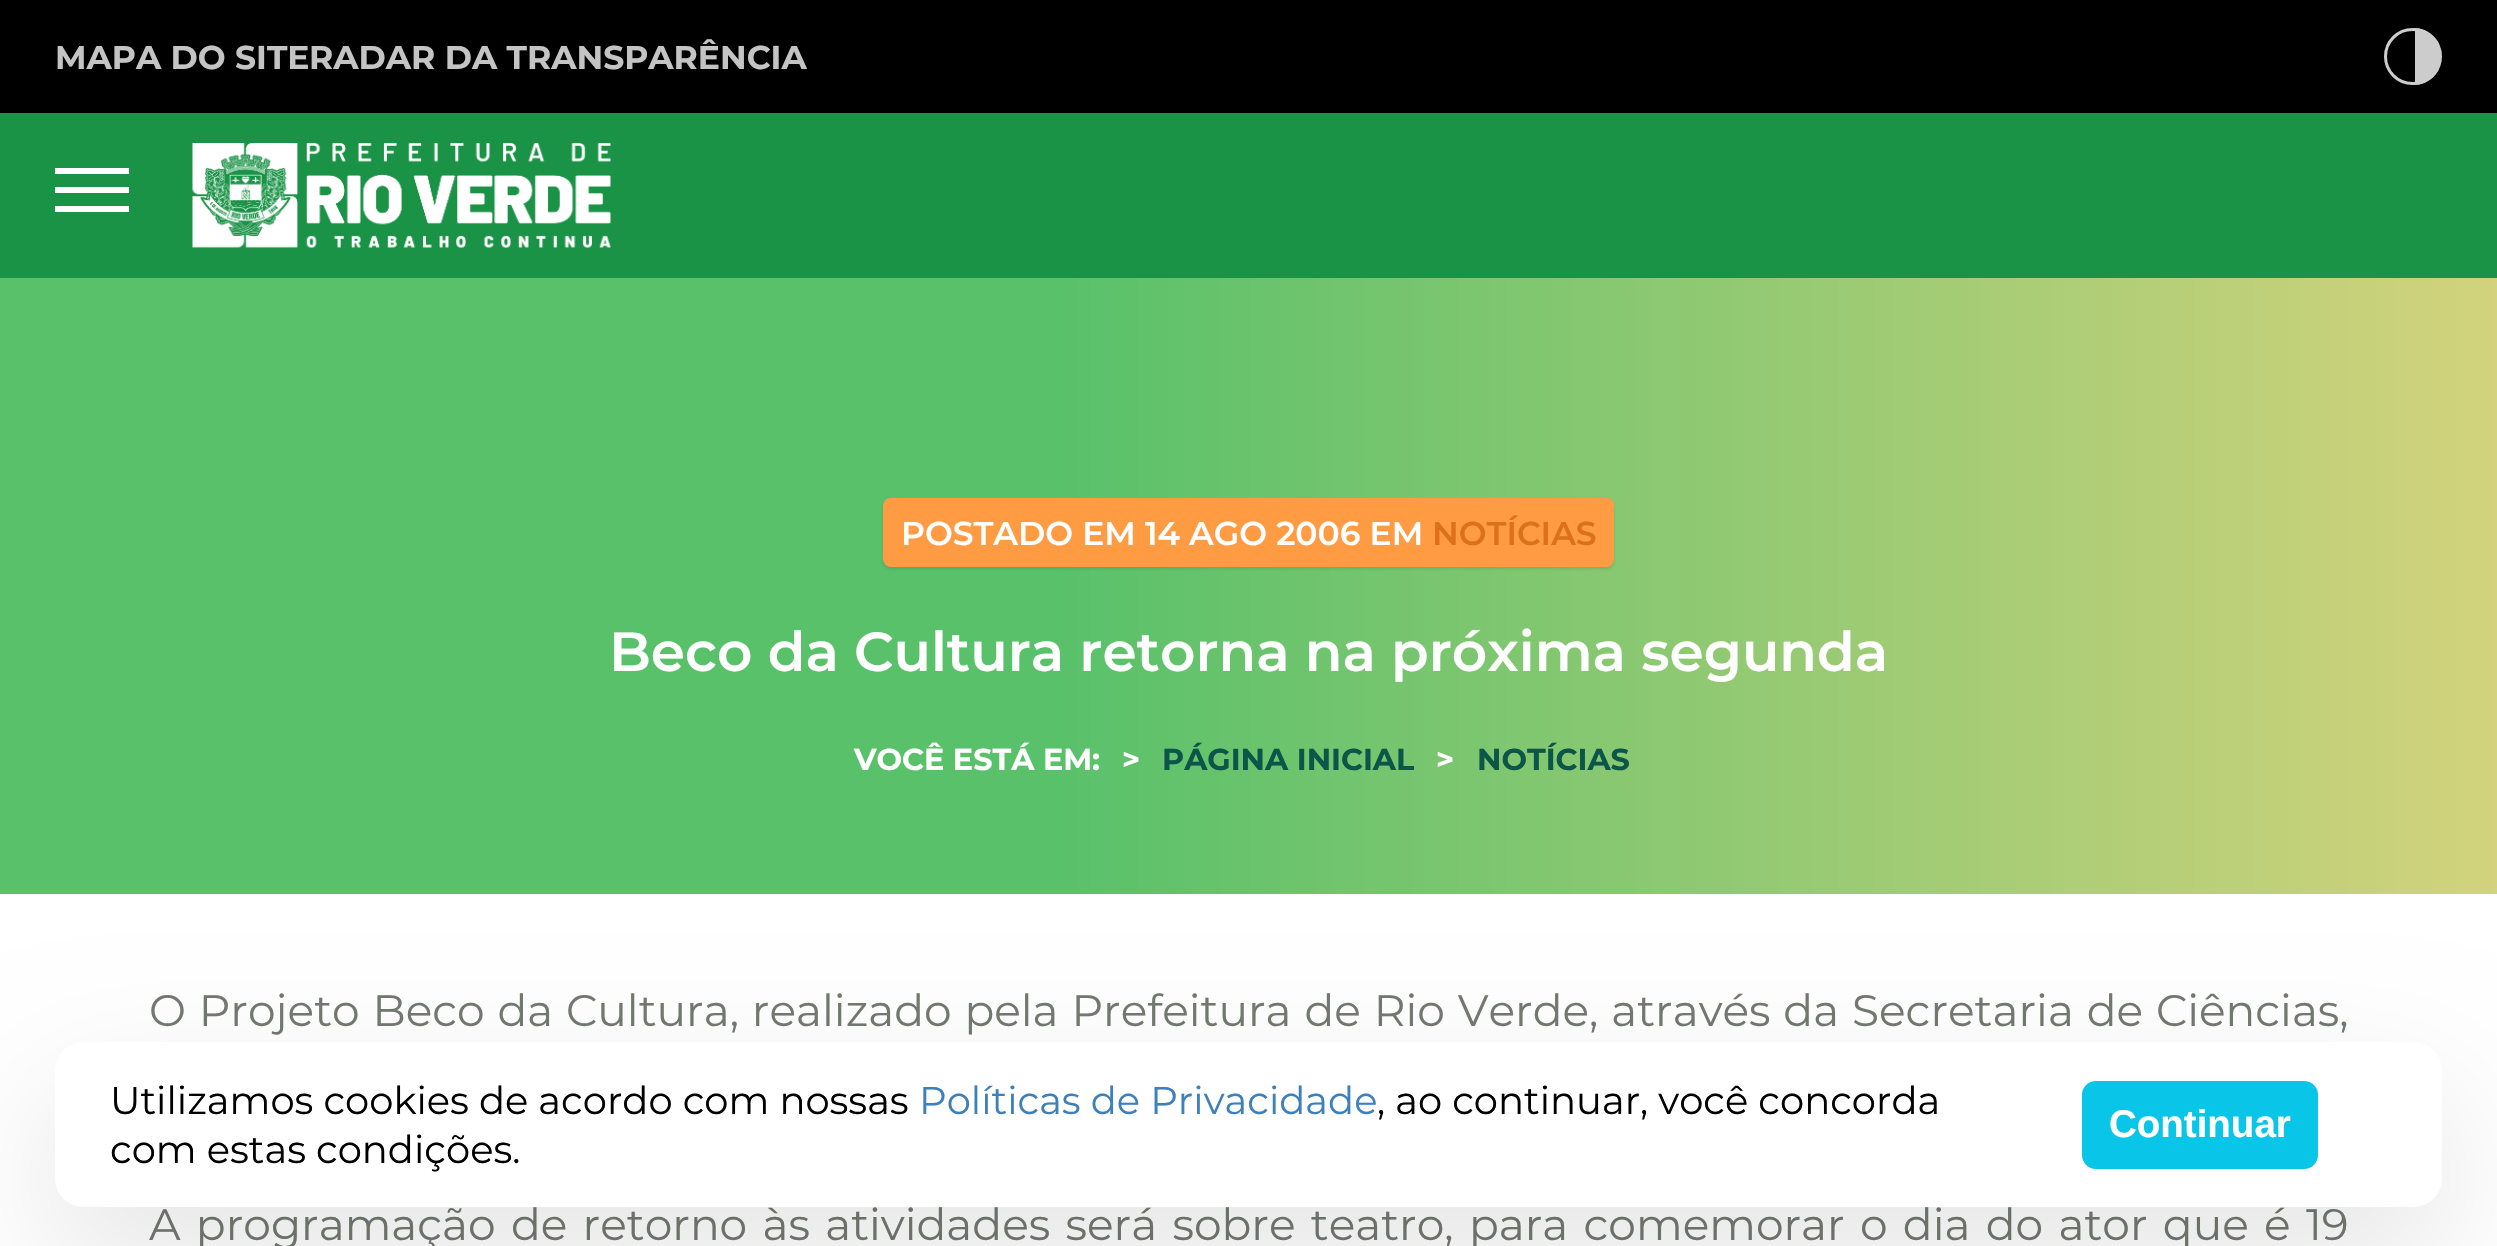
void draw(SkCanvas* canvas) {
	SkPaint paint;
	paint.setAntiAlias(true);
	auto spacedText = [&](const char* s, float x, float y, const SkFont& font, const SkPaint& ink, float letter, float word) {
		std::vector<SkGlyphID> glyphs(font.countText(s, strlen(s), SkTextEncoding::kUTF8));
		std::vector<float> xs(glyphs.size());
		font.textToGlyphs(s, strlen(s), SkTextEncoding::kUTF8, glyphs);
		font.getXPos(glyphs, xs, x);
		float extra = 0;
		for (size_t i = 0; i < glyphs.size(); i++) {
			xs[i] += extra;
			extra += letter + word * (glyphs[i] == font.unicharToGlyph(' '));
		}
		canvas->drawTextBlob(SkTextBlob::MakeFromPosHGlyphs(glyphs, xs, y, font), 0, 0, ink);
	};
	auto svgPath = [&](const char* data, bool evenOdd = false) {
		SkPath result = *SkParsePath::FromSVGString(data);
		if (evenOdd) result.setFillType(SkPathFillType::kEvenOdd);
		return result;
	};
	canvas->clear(0xffffffff);
	paint.setColor(0xff000000);
	canvas->drawRect(SkRect::MakeXYWH(0, 0, 2497, 113), paint);
	SkFont f1(fontMgr->matchFamilyStyle("Montserrat", SkFontStyle::Bold()), 33);
	f1.setSubpixel(true);
	paint.setColor(0xffc4c4c4);
	canvas->drawString("MAPA DO SITE", 55, 69, f1, paint);
	canvas->drawString("RADAR DA TRANSPARÊNCIA", 309, 69, f1, paint);
	canvas->save();
	canvas->clipPath(svgPath("M2412.5 28H2413.5C2429 28 2442 41 2442 56.5C2442 72 2429 85 2413.5 85H2412.5C2397 85 2384 72 2384 56.5C2384 41 2397 28 2412.5 28Z"), true);
	paint.setColor(0xffcccccc);
	canvas->drawRect(SkRect::MakeXYWH(2415, 28, 24, 57), paint);
	canvas->restore();
	paint.setStroke(true);
	paint.setStrokeWidth(3);
	canvas->drawRoundRect(SkRect::MakeXYWH(2385.5, 29.5, 55, 54), 27, 27, paint);
	paint.setStroke(false);
	paint.setColor(0xff1b9347);
	canvas->drawRect(SkRect::MakeXYWH(0, 113, 2497, 165), paint);
	paint.setColor(0xffffffff);
	canvas->drawRect(SkRect::MakeXYWH(55, 187, 74, 6), paint);
	canvas->drawRect(SkRect::MakeXYWH(55, 168, 74, 6), paint);
	canvas->drawRect(SkRect::MakeXYWH(55, 206, 74, 6), paint);
	canvas->drawImageRect(SkImages::DeferredFromEncodedData(SkData::MakeFromFileName("img1.png")), SkRect::MakeXYWH(192, 143, 419, 105), SkSamplingOptions());
	{
		const SkColor colors[] = {0xffd2d37c, 0xff58c16a};
		const float stops[] = {0, 0.58};
		const SkPoint ends[] = {{2497, 586}, {0, 586}};
		paint.setShader(SkGradientShader::MakeLinear(ends, colors, stops, 2, SkTileMode::kClamp));
		paint.setAlpha(255);
	}
	canvas->drawRect(SkRect::MakeXYWH(0, 278, 2497, 616), paint);
	paint.setShader(nullptr);
	paint.setColor(0x1a000000);
	paint.setMaskFilter(SkMaskFilter::MakeBlur(kNormal_SkBlurStyle, 1.5));
	canvas->drawRoundRect(SkRect::MakeXYWH(883, 501, 731, 68), 8, 8, paint);
	paint.setMaskFilter(nullptr);
	paint.setColor(0xffff9b43);
	canvas->drawRoundRect(SkRect::MakeXYWH(883, 498, 731, 69), 8, 8, paint);
	SkFont f2(fontMgr->matchFamilyStyle("Montserrat", SkFontStyle(600, SkFontStyle::kNormal_Width, SkFontStyle::kUpright_Slant)), 33);
	f2.setSubpixel(true);
	paint.setColor(0xffffffff);
	canvas->drawString("POSTADO EM 14 AGO 2006 EM", 901, 545, f2, paint);
	paint.setColor(0xffdc7119);
	canvas->drawString("NOTÍCIAS", 1432, 545, f2, paint);
	SkFont f3(fontMgr->matchFamilyStyle("Montserrat", SkFontStyle(600, SkFontStyle::kNormal_Width, SkFontStyle::kUpright_Slant)), 55);
	f3.setSubpixel(true);
	paint.setColor(0xffffffff);
	canvas->drawString("Beco da Cultura retorna na próxima segunda", 609, 671, f3, paint);
	SkFont f4(fontMgr->matchFamilyStyle("Montserrat", SkFontStyle::Bold()), 30.25);
	f4.setSubpixel(true);
	canvas->drawString("VOCÊ ESTÁ EM:", 854, 770, f4, paint);
	canvas->drawString(">", 1122, 770, f4, paint);
	paint.setColor(0xff0b5549);
	canvas->drawString("PÁGINA INICIAL", 1162, 770, f4, paint);
	paint.setColor(0xffffffff);
	canvas->drawString(">", 1436, 770, f4, paint);
	paint.setColor(0xff0b5549);
	canvas->drawString("NOTÍCIAS", 1477, 770, f4, paint);
	SkFont f5(fontMgr->matchFamilyStyle("Montserrat", SkFontStyle::Normal()), 44);
	f5.setSubpixel(true);
	paint.setColor(0xff737970);
	spacedText("O Projeto Beco da Cultura, realizado pela Prefeitura de Rio Verde, através da Secretaria de Ciências,", 149, 1026, f5, paint, 0, 1.3);
	spacedText("A programação de retorno às atividades será sobre teatro, para comemorar o dia do ator que é 19", 149, 1240, f5, paint, 0, 3.75);
	paint.setColor(0x1a000000);
	paint.setMaskFilter(SkMaskFilter::MakeBlur(kNormal_SkBlurStyle, 69));
	canvas->drawRoundRect(SkRect::MakeXYWH(55, 1097, 2387, 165), 28, 28, paint);
	paint.setMaskFilter(nullptr);
	paint.setColor(0xffffffff);
	canvas->drawRoundRect(SkRect::MakeXYWH(55, 1042, 2387, 165), 28, 28, paint);
	SkFont f6(fontMgr->matchFamilyStyle("Montserrat", SkFontStyle::Normal()), 38.5);
	f6.setSubpixel(true);
	paint.setColor(0xff000000);
	canvas->drawString("Utilizamos cookies de acordo com nossas", 110, 1114, f6, paint);
	paint.setColor(0xff3c80bc);
	canvas->drawString("Políticas de Privacidade", 919, 1114, f6, paint);
	paint.setColor(0xff000000);
	canvas->drawString(", ao continuar, você concorda", 1377, 1114, f6, paint);
	canvas->drawString("com estas condições.", 110, 1163, f6, paint);
	paint.setColor(0xff09c5e7);
	canvas->drawRoundRect(SkRect::MakeXYWH(2082, 1081, 236, 88), 14, 14, paint);
	SkFont f7(fontMgr->matchFamilyStyle("Liberation Sans", SkFontStyle::Bold()), 38.5);
	f7.setSubpixel(true);
	paint.setColor(0xffffffff);
	canvas->drawString("Continuar", 2109, 1137, f7, paint);
}
